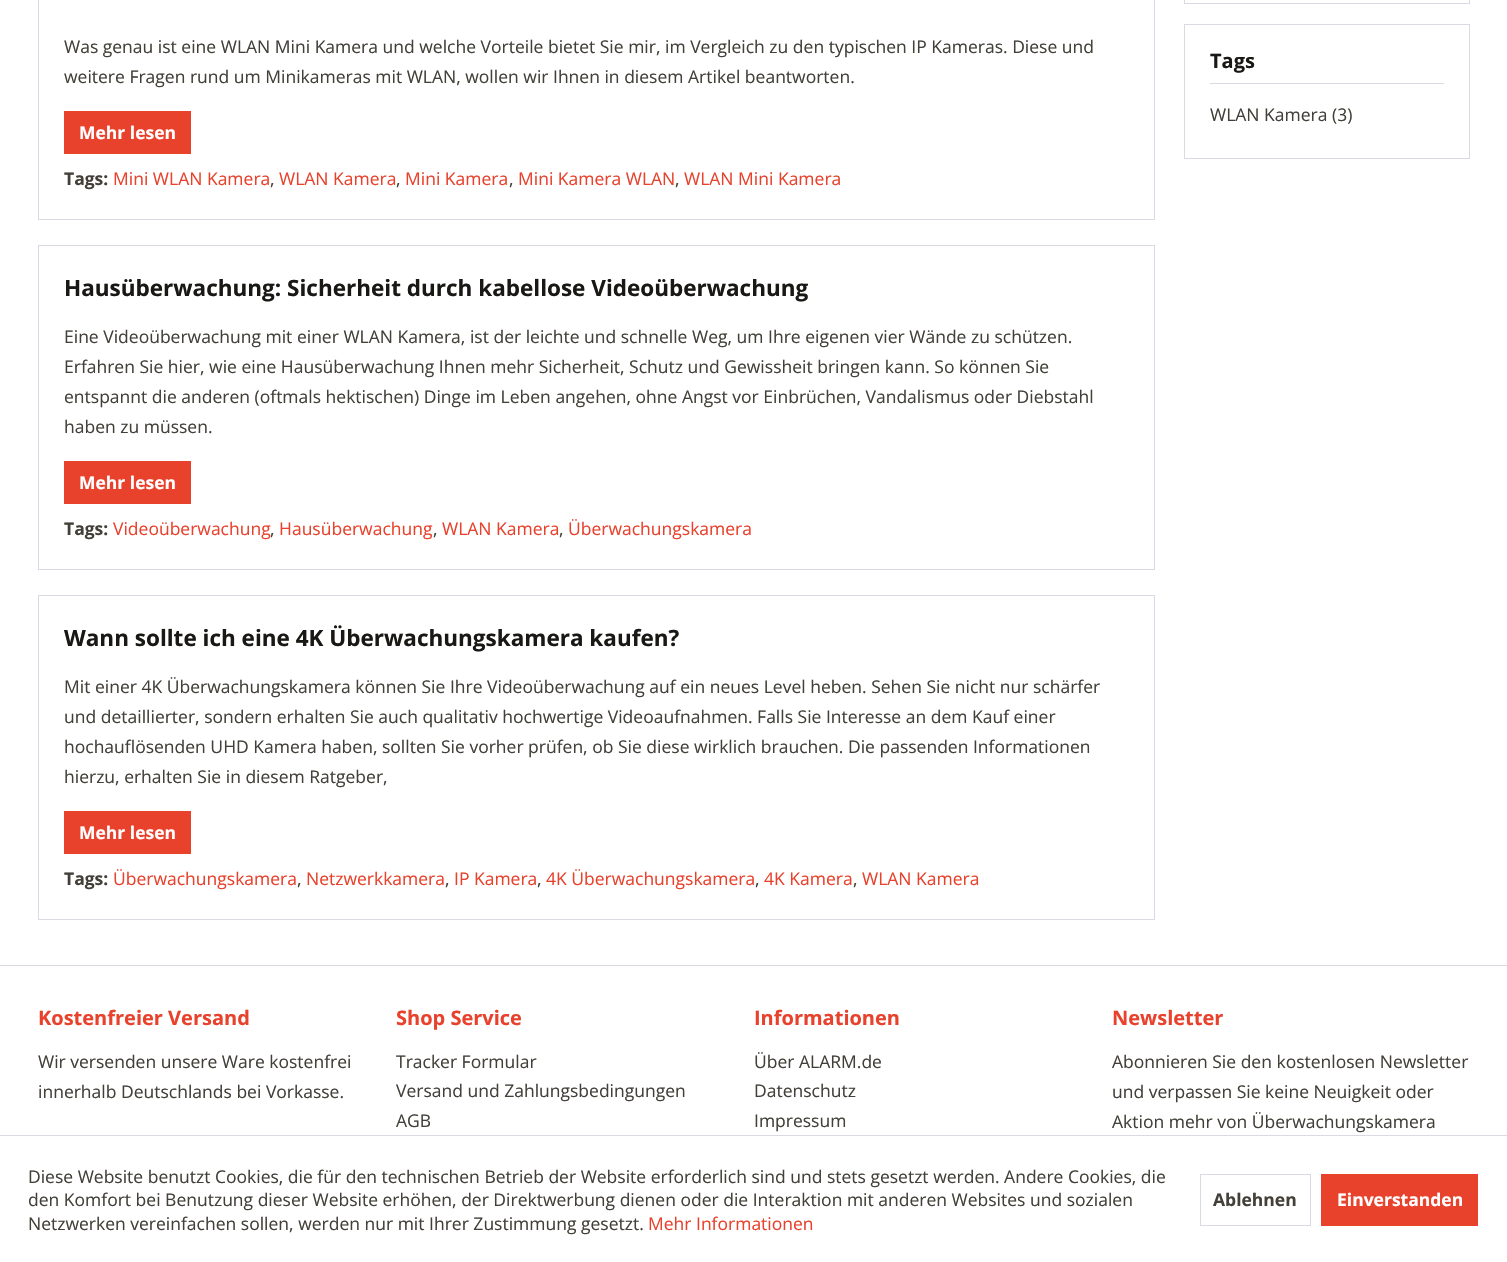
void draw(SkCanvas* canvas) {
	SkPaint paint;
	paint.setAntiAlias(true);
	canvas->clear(0xffffffff);
	paint.setStroke(true);
	paint.setStrokeWidth(1);
	paint.setColor(0xffdadae5);
	canvas->drawRect(SkRect::MakeXYWH(38.5, -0.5, 1116, 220), paint);
	SkFont f1(fontMgr->matchFamilyStyle("Open Sans", SkFontStyle::Normal()), 17.5);
	f1.setSubpixel(true);
	paint.setStroke(false);
	paint.setColor(0xff424038);
	canvas->drawString("Was genau ist eine WLAN Mini Kamera und welche Vorteile bietet Sie mir, im Vergleich zu den typischen IP Kameras. Diese und", 64, 53, f1, paint);
	canvas->drawString("weitere Fragen rund um Minikameras mit WLAN, wollen wir Ihnen in diesem Artikel beantworten.", 64, 83, f1, paint);
	paint.setColor(0xffe8412c);
	canvas->drawRect(SkRect::MakeXYWH(64, 111, 127, 43), paint);
	SkFont f2(fontMgr->matchFamilyStyle("Open Sans", SkFontStyle::Bold()), 17.5);
	f2.setSubpixel(true);
	paint.setColor(0xffffffff);
	canvas->drawString("Mehr lesen", 79, 139, f2, paint);
	paint.setColor(0xff424038);
	canvas->drawString("Tags:", 64, 185, f2, paint);
	paint.setColor(0xffe8412c);
	canvas->drawString("Mini WLAN Kamera", 113, 185, f1, paint);
	paint.setColor(0xff424038);
	canvas->drawString(",", 270, 185, f1, paint);
	paint.setColor(0xffe8412c);
	canvas->drawString("WLAN Kamera", 279, 185, f1, paint);
	paint.setColor(0xff424038);
	canvas->drawString(",", 396, 185, f1, paint);
	paint.setColor(0xffe8412c);
	canvas->drawString("Mini Kamera", 405, 185, f1, paint);
	paint.setColor(0xff424038);
	canvas->drawString(",", 509, 185, f1, paint);
	paint.setColor(0xffe8412c);
	canvas->drawString("Mini Kamera WLAN", 518, 185, f1, paint);
	paint.setColor(0xff424038);
	canvas->drawString(",", 675, 185, f1, paint);
	paint.setColor(0xffe8412c);
	canvas->drawString("WLAN Mini Kamera", 684, 185, f1, paint);
	paint.setStroke(true);
	paint.setColor(0xffdadae5);
	canvas->drawRect(SkRect::MakeXYWH(38.5, 245.5, 1116, 324), paint);
	SkFont f3(fontMgr->matchFamilyStyle("Open Sans", SkFontStyle::Bold()), 22.5);
	f3.setSubpixel(true);
	paint.setStroke(false);
	paint.setColor(0xff191815);
	canvas->drawString("Hausüberwachung: Sicherheit durch kabellose Videoüberwachung", 64, 296, f3, paint);
	paint.setColor(0xff424038);
	canvas->drawString("Eine Videoüberwachung mit einer WLAN Kamera, ist der leichte und schnelle Weg, um Ihre eigenen vier Wände zu schützen.", 64, 343, f1, paint);
	canvas->drawString("Erfahren Sie hier, wie eine Hausüberwachung Ihnen mehr Sicherheit, Schutz und Gewissheit bringen kann. So können Sie", 64, 373, f1, paint);
	canvas->drawString("entspannt die anderen (oftmals hektischen) Dinge im Leben angehen, ohne Angst vor Einbrüchen, Vandalismus oder Diebstahl", 64, 403, f1, paint);
	canvas->drawString("haben zu müssen.", 64, 433, f1, paint);
	paint.setColor(0xffe8412c);
	canvas->drawRect(SkRect::MakeXYWH(64, 461, 127, 43), paint);
	paint.setColor(0xffffffff);
	canvas->drawString("Mehr lesen", 79, 489, f2, paint);
	paint.setColor(0xff424038);
	canvas->drawString("Tags:", 64, 535, f2, paint);
	paint.setColor(0xffe8412c);
	canvas->drawString("Videoüberwachung", 113, 535, f1, paint);
	paint.setColor(0xff424038);
	canvas->drawString(",", 270, 535, f1, paint);
	paint.setColor(0xffe8412c);
	canvas->drawString("Hausüberwachung", 279, 535, f1, paint);
	paint.setColor(0xff424038);
	canvas->drawString(",", 433, 535, f1, paint);
	paint.setColor(0xffe8412c);
	canvas->drawString("WLAN Kamera", 442, 535, f1, paint);
	paint.setColor(0xff424038);
	canvas->drawString(",", 559, 535, f1, paint);
	paint.setColor(0xffe8412c);
	canvas->drawString("Überwachungskamera", 568, 535, f1, paint);
	paint.setStroke(true);
	paint.setColor(0xffdadae5);
	canvas->drawRect(SkRect::MakeXYWH(38.5, 595.5, 1116, 324), paint);
	paint.setStroke(false);
	paint.setColor(0xff191815);
	canvas->drawString("Wann sollte ich eine 4K Überwachungskamera kaufen?", 64, 646, f3, paint);
	paint.setColor(0xff424038);
	canvas->drawString("Mit einer 4K Überwachungskamera können Sie Ihre Videoüberwachung auf ein neues Level heben. Sehen Sie nicht nur schärfer", 64, 693, f1, paint);
	canvas->drawString("und detaillierter, sondern erhalten Sie auch qualitativ hochwertige Videoaufnahmen. Falls Sie Interesse an dem Kauf einer", 64, 723, f1, paint);
	canvas->drawString("hochauflösenden UHD Kamera haben, sollten Sie vorher prüfen, ob Sie diese wirklich brauchen. Die passenden Informationen", 64, 753, f1, paint);
	canvas->drawString("hierzu, erhalten Sie in diesem Ratgeber,", 64, 783, f1, paint);
	paint.setColor(0xffe8412c);
	canvas->drawRect(SkRect::MakeXYWH(64, 811, 127, 43), paint);
	paint.setColor(0xffffffff);
	canvas->drawString("Mehr lesen", 79, 839, f2, paint);
	paint.setColor(0xff424038);
	canvas->drawString("Tags:", 64, 885, f2, paint);
	paint.setColor(0xffe8412c);
	canvas->drawString("Überwachungskamera", 113, 885, f1, paint);
	paint.setColor(0xff424038);
	canvas->drawString(",", 297, 885, f1, paint);
	paint.setColor(0xffe8412c);
	canvas->drawString("Netzwerkkamera", 306, 885, f1, paint);
	paint.setColor(0xff424038);
	canvas->drawString(",", 445, 885, f1, paint);
	paint.setColor(0xffe8412c);
	canvas->drawString("IP Kamera", 454, 885, f1, paint);
	paint.setColor(0xff424038);
	canvas->drawString(",", 537, 885, f1, paint);
	paint.setColor(0xffe8412c);
	canvas->drawString("4K Überwachungskamera", 546, 885, f1, paint);
	paint.setColor(0xff424038);
	canvas->drawString(",", 755, 885, f1, paint);
	paint.setColor(0xffe8412c);
	canvas->drawString("4K Kamera", 764, 885, f1, paint);
	paint.setColor(0xff424038);
	canvas->drawString(",", 853, 885, f1, paint);
	paint.setColor(0xffe8412c);
	canvas->drawString("WLAN Kamera", 862, 885, f1, paint);
	paint.setStroke(true);
	paint.setColor(0xffdadae5);
	canvas->drawRect(SkRect::MakeXYWH(1184.5, -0.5, 285, 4), paint);
	canvas->drawRect(SkRect::MakeXYWH(1184.5, 24.5, 285, 134), paint);
	paint.setStroke(false);
	canvas->drawRect(SkRect::MakeXYWH(1210, 83, 234, 1), paint);
	SkFont f4(fontMgr->matchFamilyStyle("Open Sans", SkFontStyle::Bold()), 20);
	f4.setSubpixel(true);
	paint.setColor(0xff191815);
	canvas->drawString("Tags", 1210, 68, f4, paint);
	paint.setColor(0xff424038);
	canvas->drawString("WLAN Kamera (3)", 1210, 121, f1, paint);
	paint.setColor(0xffdadae5);
	canvas->drawRect(SkRect::MakeXYWH(0, 965, 1507, 1), paint);
	paint.setColor(0xffe8412c);
	canvas->drawString("Kostenfreier Versand", 38, 1025, f4, paint);
	paint.setColor(0xff424038);
	canvas->drawString("Wir versenden unsere Ware kostenfrei", 38, 1068, f1, paint);
	canvas->drawString("innerhalb Deutschlands bei Vorkasse.", 38, 1098, f1, paint);
	paint.setColor(0xffe8412c);
	canvas->drawString("Shop Service", 396, 1025, f4, paint);
	paint.setColor(0xff424038);
	canvas->drawString("Tracker Formular", 396, 1068, f1, paint);
	canvas->drawString("Versand und Zahlungsbedingungen", 396, 1097, f1, paint);
	canvas->drawString("AGB", 396, 1127, f1, paint);
	paint.setColor(0xffe8412c);
	canvas->drawString("Informationen", 754, 1025, f4, paint);
	paint.setColor(0xff424038);
	canvas->drawString("Über ALARM.de", 754, 1068, f1, paint);
	canvas->drawString("Datenschutz", 754, 1097, f1, paint);
	canvas->drawString("Impressum", 754, 1127, f1, paint);
	paint.setColor(0xffe8412c);
	canvas->drawString("Newsletter", 1112, 1025, f4, paint);
	paint.setColor(0xff424038);
	canvas->drawString("Abonnieren Sie den kostenlosen Newsletter", 1112, 1068, f1, paint);
	canvas->drawString("und verpassen Sie keine Neuigkeit oder", 1112, 1098, f1, paint);
	canvas->drawString("Aktion mehr von Überwachungskamera", 1112, 1128, f1, paint);
	paint.setColor(0xffdadae5);
	canvas->drawRect(SkRect::MakeXYWH(0, 1135, 1507, 1), paint);
	paint.setColor(0xff424038);
	canvas->drawString("Diese Website benutzt Cookies, die für den technischen Betrieb der Website erforderlich sind und stets gesetzt werden. Andere Cookies, die", 28, 1183, f1, paint);
	canvas->drawString("den Komfort bei Benutzung dieser Website erhöhen, der Direktwerbung dienen oder die Interaktion mit anderen Websites und sozialen", 28, 1206, f1, paint);
	canvas->drawString("Netzwerken vereinfachen sollen, werden nur mit Ihrer Zustimmung gesetzt.", 28, 1230, f1, paint);
	paint.setColor(0xffe8412c);
	canvas->drawString("Mehr Informationen", 648, 1230, f1, paint);
	paint.setStroke(true);
	paint.setColor(0xffdadae5);
	canvas->drawRect(SkRect::MakeXYWH(1200.5, 1174.5, 110, 51), paint);
	paint.setStroke(false);
	paint.setColor(0xff424038);
	canvas->drawString("Ablehnen", 1213, 1206, f2, paint);
	paint.setColor(0xffe8412c);
	canvas->drawRect(SkRect::MakeXYWH(1321, 1174, 157, 52), paint);
	paint.setColor(0xffffffff);
	canvas->drawString("Einverstanden", 1337, 1206, f2, paint);
}
